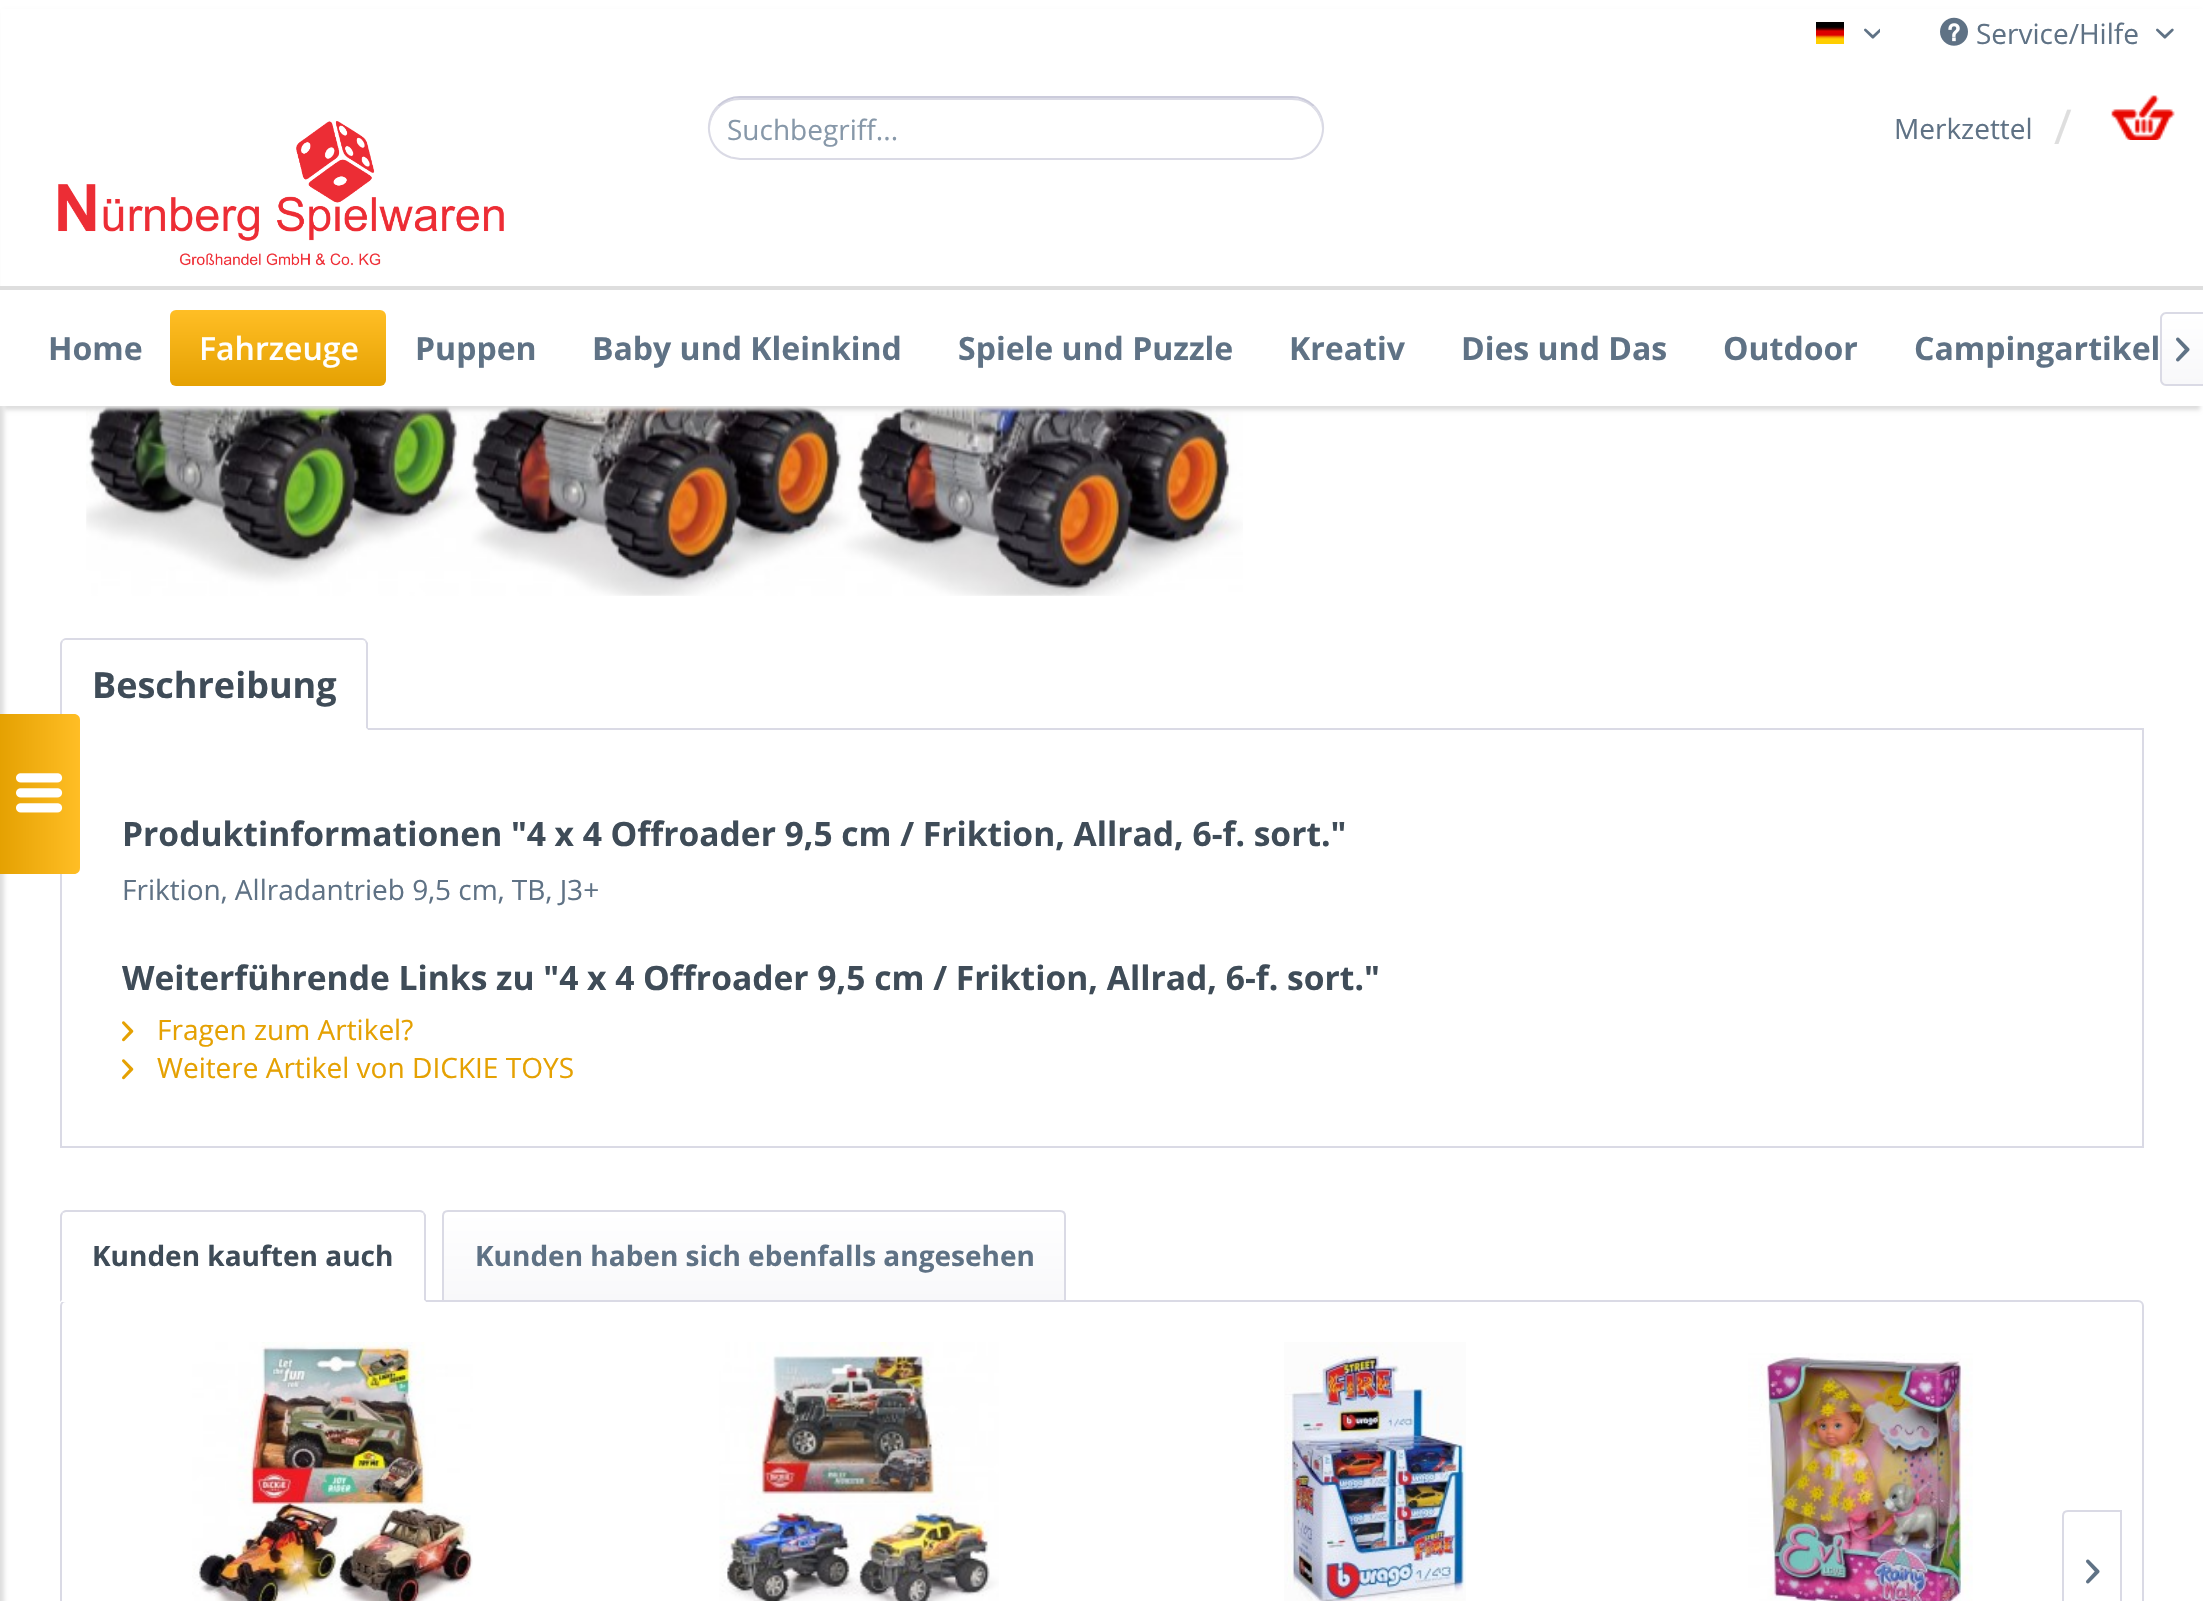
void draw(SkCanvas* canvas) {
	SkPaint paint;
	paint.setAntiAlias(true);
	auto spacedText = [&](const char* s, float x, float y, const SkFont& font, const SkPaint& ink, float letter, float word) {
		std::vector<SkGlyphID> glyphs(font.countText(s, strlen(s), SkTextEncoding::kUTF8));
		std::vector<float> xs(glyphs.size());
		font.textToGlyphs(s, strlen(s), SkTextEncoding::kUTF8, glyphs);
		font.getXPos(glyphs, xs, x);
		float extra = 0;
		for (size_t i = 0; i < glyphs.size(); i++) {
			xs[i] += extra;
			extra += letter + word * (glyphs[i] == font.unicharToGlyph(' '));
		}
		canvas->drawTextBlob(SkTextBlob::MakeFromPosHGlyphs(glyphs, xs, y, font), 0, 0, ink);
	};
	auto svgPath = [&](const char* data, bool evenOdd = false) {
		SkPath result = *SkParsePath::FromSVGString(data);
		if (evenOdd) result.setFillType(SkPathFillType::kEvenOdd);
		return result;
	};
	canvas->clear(0xffffffff);
	canvas->drawImageRect(SkImages::DeferredFromEncodedData(SkData::MakeFromFileName("img9.png")), SkRect::MakeXYWH(86, 406, 1157, 190), SkSamplingOptions());
	paint.setColor(0xffdedede);
	paint.setMaskFilter(SkMaskFilter::MakeBlur(kNormal_SkBlurStyle, 2));
	canvas->drawRect(SkRect::MakeXYWH(4, 12, 2196, 398), paint);
	paint.setMaskFilter(nullptr);
	paint.setColor(0xffffffff);
	canvas->drawRect(SkRect::MakeXYWH(1, 9, 2202, 277), paint);
	paint.setColor(0xffdedede);
	canvas->drawRect(SkRect::MakeXYWH(0, 286, 2203, 4), paint);
	canvas->drawImageRect(SkImages::DeferredFromEncodedData(SkData::MakeFromFileName("img1.png")), SkRect::MakeXYWH(1816, 22, 28, 22), SkSamplingOptions());
	canvas->drawImageRect(SkImages::DeferredFromEncodedData(SkData::MakeFromFileName("img2.png")), SkRect::MakeXYWH(1864, 28, 16, 11), SkSamplingOptions());
	canvas->drawImageRect(SkImages::DeferredFromEncodedData(SkData::MakeFromFileName("img3.png")), SkRect::MakeXYWH(1940, 17, 28, 29), SkSamplingOptions());
	SkFont f1(fontMgr->matchFamilyStyle("Open Sans", SkFontStyle::Normal()), 28);
	f1.setSubpixel(true);
	paint.setColor(0xff5f7285);
	canvas->drawString("Service/Hilfe", 1976, 44, f1, paint);
	canvas->drawImageRect(SkImages::DeferredFromEncodedData(SkData::MakeFromFileName("img4.png")), SkRect::MakeXYWH(2156, 28, 18, 11), SkSamplingOptions());
	canvas->drawImageRect(SkImages::DeferredFromEncodedData(SkData::MakeFromFileName("img5.png")), SkRect::MakeXYWH(58, 121, 446, 145), SkSamplingOptions());
	paint.setColor(0xffdadae5);
	canvas->drawPath(svgPath("M740 100H1292C1309 100 1321 112 1322 129C1323 112 1309 98 1292 98H740C723 98 709 112 710 129C711 112 723 100 740 100Z"), paint);
	paint.setStroke(true);
	paint.setStrokeWidth(2);
	paint.setColor(0xffcbcbdb);
	canvas->drawPath(svgPath("M718 106C724 100.5 732 97 740 97H1292C1300 97 1308 100.5 1314 106"), paint);
	paint.setColor(0xffdadae5);
	canvas->drawPath(svgPath("M1314 106C1330.5 122.5 1323.5 151 1301 157.5L1292 159H740L731 157.5C708.5 151 701.5 122.5 718 106"), paint);
	paint.setStroke(false);
	paint.setColor(0xff8798a9);
	canvas->drawString("Suchbegriff...", 727, 140, f1, paint);
	paint.setColor(0xff5f7285);
	canvas->drawString("Merkzettel", 1894, 139, f1, paint);
	SkFont f2(fontMgr->matchFamilyStyle("Open Sans", SkFontStyle::Normal()), 48);
	f2.setSubpixel(true);
	paint.setColor(0xffdedede);
	canvas->drawString("/", 2054, 144, f2, paint);
	canvas->drawImageRect(SkImages::DeferredFromEncodedData(SkData::MakeFromFileName("img6.png")), SkRect::MakeXYWH(2111, 95, 64, 45), SkSamplingOptions());
	paint.setMaskFilter(SkMaskFilter::MakeBlur(kNormal_SkBlurStyle, 2));
	canvas->drawRect(SkRect::MakeXYWH(-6, 336, 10, 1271), paint);
	paint.setMaskFilter(nullptr);
	paint.setColor(0xffffffff);
	canvas->drawRect(SkRect::MakeXYWH(0, 290, 2203, 116), paint);
	SkFont f3(fontMgr->matchFamilyStyle("Open Sans", SkFontStyle::Bold()), 32);
	f3.setSubpixel(true);
	paint.setColor(0xff5f7285);
	canvas->drawString("Home", 48, 360, f3, paint);
	{
		const SkColor colors[] = {0xffffbe25, 0xffe5a102};
		const float stops[] = {0, 1};
		const SkPoint ends[] = {{278, 310}, {278, 386}};
		paint.setShader(SkGradientShader::MakeLinear(ends, colors, stops, 2, SkTileMode::kClamp));
		paint.setAlpha(255);
	}
	canvas->drawRoundRect(SkRect::MakeXYWH(170, 310, 216, 76), 6, 6, paint);
	SkFont f4(fontMgr->matchFamilyStyle("Open Sans", SkFontStyle(600, SkFontStyle::kNormal_Width, SkFontStyle::kUpright_Slant)), 32);
	f4.setSubpixel(true);
	paint.setShader(nullptr);
	paint.setColor(0xffffffff);
	canvas->drawString("Fahrzeuge", 199, 360, f4, paint);
	paint.setColor(0xff5f7285);
	canvas->drawString("Puppen", 415, 360, f3, paint);
	canvas->drawString("Baby und Kleinkind", 592, 360, f3, paint);
	canvas->drawString("Spiele und Puzzle", 958, 360, f3, paint);
	canvas->drawString("Kreativ", 1289, 360, f3, paint);
	canvas->drawString("Dies und Das", 1461, 360, f3, paint);
	canvas->drawString("Outdoor", 1723, 360, f3, paint);
	canvas->drawString("Campingartikel", 1914, 360, f3, paint);
	{
		const SkColor colors[] = {0xffffffff, 0xfff8f8fa};
		const float stops[] = {0, 1};
		const SkPoint ends[] = {{2183, 314}, {2183, 384}};
		paint.setShader(SkGradientShader::MakeLinear(ends, colors, stops, 2, SkTileMode::kClamp));
		paint.setAlpha(255);
	}
	canvas->drawPath(svgPath("M2166 314H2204V384H2166C2164 384 2162 382 2162 380V318C2162 316 2164 314 2166 314Z"), paint);
	paint.setShader(nullptr);
	paint.setColor(0xffdadae5);
	canvas->drawPath(svgPath("M2166 312H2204V386H2166C2163 386 2160 383 2160 380V318C2160 315 2163 312 2166 312ZM2166 314H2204V384H2166C2164 384 2162 382 2162 380V318C2162 316 2164 314 2166 314Z", true), paint);
	canvas->drawImageRect(SkImages::DeferredFromEncodedData(SkData::MakeFromFileName("img7.png")), SkRect::MakeXYWH(2176, 337, 14, 25), SkSamplingOptions());
	paint.setStroke(true);
	canvas->drawRect(SkRect::MakeXYWH(61, 729, 2082, 418), paint);
	paint.setStroke(false);
	paint.setColor(0xffffffff);
	canvas->drawPath(svgPath("M66 638H362C365.5 638 368 640.5 368 644V730H60V644C60 640.5 62.5 638 66 638Z"), paint);
	paint.setColor(0xffdadae5);
	canvas->drawPath(svgPath("M66 638C64 638 63 639 62 640L63 641C64 640 65 640 66 640H362C363 640 364 640 365 641L366 640C365 639 364 638 362 638Z"), paint);
	canvas->drawPath(svgPath("M368 730V643L366 640L365 641L366 644V728Z"), paint);
	paint.setColor(0xffffffff);
	canvas->drawPath(svgPath("M368 730L366 728H62L60 730Z"), paint);
	paint.setColor(0xffdadae5);
	canvas->drawPath(svgPath("M60 730L62 728V644L63 641L62 640C61 641 60 642 60 644Z"), paint);
	{
		const SkColor colors[] = {0xffffbe25, 0xffe5a102};
		const float stops[] = {0, 1};
		const SkPoint ends[] = {{80, 794}, {0, 794}};
		paint.setShader(SkGradientShader::MakeLinear(ends, colors, stops, 2, SkTileMode::kClamp));
		paint.setAlpha(255);
	}
	canvas->drawPath(svgPath("M0 714H74C77.5 714 80 716.5 80 720V868C80 871.5 77.5 874 74 874H0Z"), paint);
	canvas->drawImageRect(SkImages::DeferredFromEncodedData(SkData::MakeFromFileName("img8.png")), SkRect::MakeXYWH(16, 773, 47, 40), SkSamplingOptions());
	SkFont f5(fontMgr->matchFamilyStyle("Open Sans", SkFontStyle::Bold()), 36);
	f5.setSubpixel(true);
	paint.setShader(nullptr);
	paint.setColor(0xff3f4c58);
	canvas->drawString("Beschreibung", 92, 698, f5, paint);
	SkFont f6(fontMgr->matchFamilyStyle("Open Sans", SkFontStyle::Bold()), 33.6);
	f6.setSubpixel(true);
	spacedText("Produktinformationen \"4 x 4 Offroader 9,5 cm / Friktion, Allrad, 6-f. sort.\"", 122, 846, f6, paint, 0, -0.1);
	paint.setColor(0xff5f7285);
	canvas->drawString("Friktion, Allradantrieb 9,5 cm, TB, J3+", 122, 900, f1, paint);
	paint.setColor(0xff3f4c58);
	canvas->drawString("Weiterführende Links zu \"4 x 4 Offroader 9,5 cm / Friktion, Allrad, 6-f. sort.\"", 122, 990, f6, paint);
	canvas->drawImageRect(SkImages::DeferredFromEncodedData(SkData::MakeFromFileName("img10.png")), SkRect::MakeXYWH(122, 1021, 12, 21), SkSamplingOptions());
	paint.setColor(0xffe5a102);
	canvas->drawString("Fragen zum Artikel?", 157, 1040, f1, paint);
	canvas->drawImageRect(SkImages::DeferredFromEncodedData(SkData::MakeFromFileName("img10.png")), SkRect::MakeXYWH(122, 1059, 12, 21), SkSamplingOptions());
	canvas->drawString("Weitere Artikel von DICKIE TOYS", 157, 1078, f1, paint);
	paint.setStroke(true);
	paint.setColor(0xffdadae5);
	canvas->drawRoundRect(SkRect::MakeXYWH(61, 1301, 2082, 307), 5, 5, paint);
	paint.setStroke(false);
	paint.setColor(0xffffffff);
	canvas->drawPath(svgPath("M66 1210H420C423.5 1210 426 1212.5 426 1216V1302H60V1216C60 1212.5 62.5 1210 66 1210Z"), paint);
	paint.setColor(0xffdadae5);
	canvas->drawPath(svgPath("M66 1210C64 1210 63 1211 62 1212L63 1213L66 1212H420L423 1213L424 1212C423 1211 422 1210 420 1210Z"), paint);
	canvas->drawPath(svgPath("M426 1302V1215L424 1212L423 1213L424 1216V1300Z"), paint);
	paint.setColor(0xffffffff);
	canvas->drawPath(svgPath("M426 1302L424 1300H62L60 1302Z"), paint);
	paint.setColor(0xffdadae5);
	canvas->drawPath(svgPath("M60 1302L62 1300V1216L63 1213L62 1212C61 1213 60 1214 60 1216Z"), paint);
	SkFont f7(fontMgr->matchFamilyStyle("Open Sans", SkFontStyle::Bold()), 28);
	f7.setSubpixel(true);
	paint.setColor(0xff3f4c58);
	canvas->drawString("Kunden kauften auch", 92, 1266, f7, paint);
	{
		const SkColor colors[] = {0xffffffff, 0xfff8f8fa};
		const float stops[] = {0, 1};
		const SkPoint ends[] = {{754, 1212}, {754, 1300}};
		paint.setShader(SkGradientShader::MakeLinear(ends, colors, stops, 2, SkTileMode::kClamp));
		paint.setAlpha(255);
	}
	canvas->drawPath(svgPath("M448 1212H1060C1062 1212 1064 1214 1064 1216V1300H444V1216C444 1214 446 1212 448 1212Z"), paint);
	paint.setStroke(true);
	paint.setShader(nullptr);
	paint.setColor(0xffdadae5);
	canvas->drawPath(svgPath("M448 1211H1060C1063 1211 1065 1213 1065 1216V1301H443V1216C443 1213 445 1211 448 1211Z"), paint);
	paint.setStroke(false);
	paint.setColor(0xff5f7285);
	canvas->drawString("Kunden haben sich ebenfalls angesehen", 475, 1266, f7, paint);
	canvas->drawImageRect(SkImages::DeferredFromEncodedData(SkData::MakeFromFileName("img11.png")), SkRect::MakeXYWH(192, 1342, 281, 259), SkSamplingOptions());
	canvas->drawImageRect(SkImages::DeferredFromEncodedData(SkData::MakeFromFileName("img12.png")), SkRect::MakeXYWH(719, 1342, 280, 259), SkSamplingOptions());
	canvas->drawImageRect(SkImages::DeferredFromEncodedData(SkData::MakeFromFileName("img13.png")), SkRect::MakeXYWH(1284, 1342, 182, 259), SkSamplingOptions());
	canvas->drawImageRect(SkImages::DeferredFromEncodedData(SkData::MakeFromFileName("img14.png")), SkRect::MakeXYWH(1748, 1353, 225, 248), SkSamplingOptions());
	paint.setStroke(true);
	paint.setColor(0xffdadae5);
	canvas->drawPath(svgPath("M2068 1511H2121V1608H2068C2065 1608 2063 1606 2063 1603V1516C2063 1513 2065 1511 2068 1511Z"), paint);
	canvas->drawImageRect(SkImages::DeferredFromEncodedData(SkData::MakeFromFileName("img15.png")), SkRect::MakeXYWH(2086, 1559, 14, 25), SkSamplingOptions());
}
